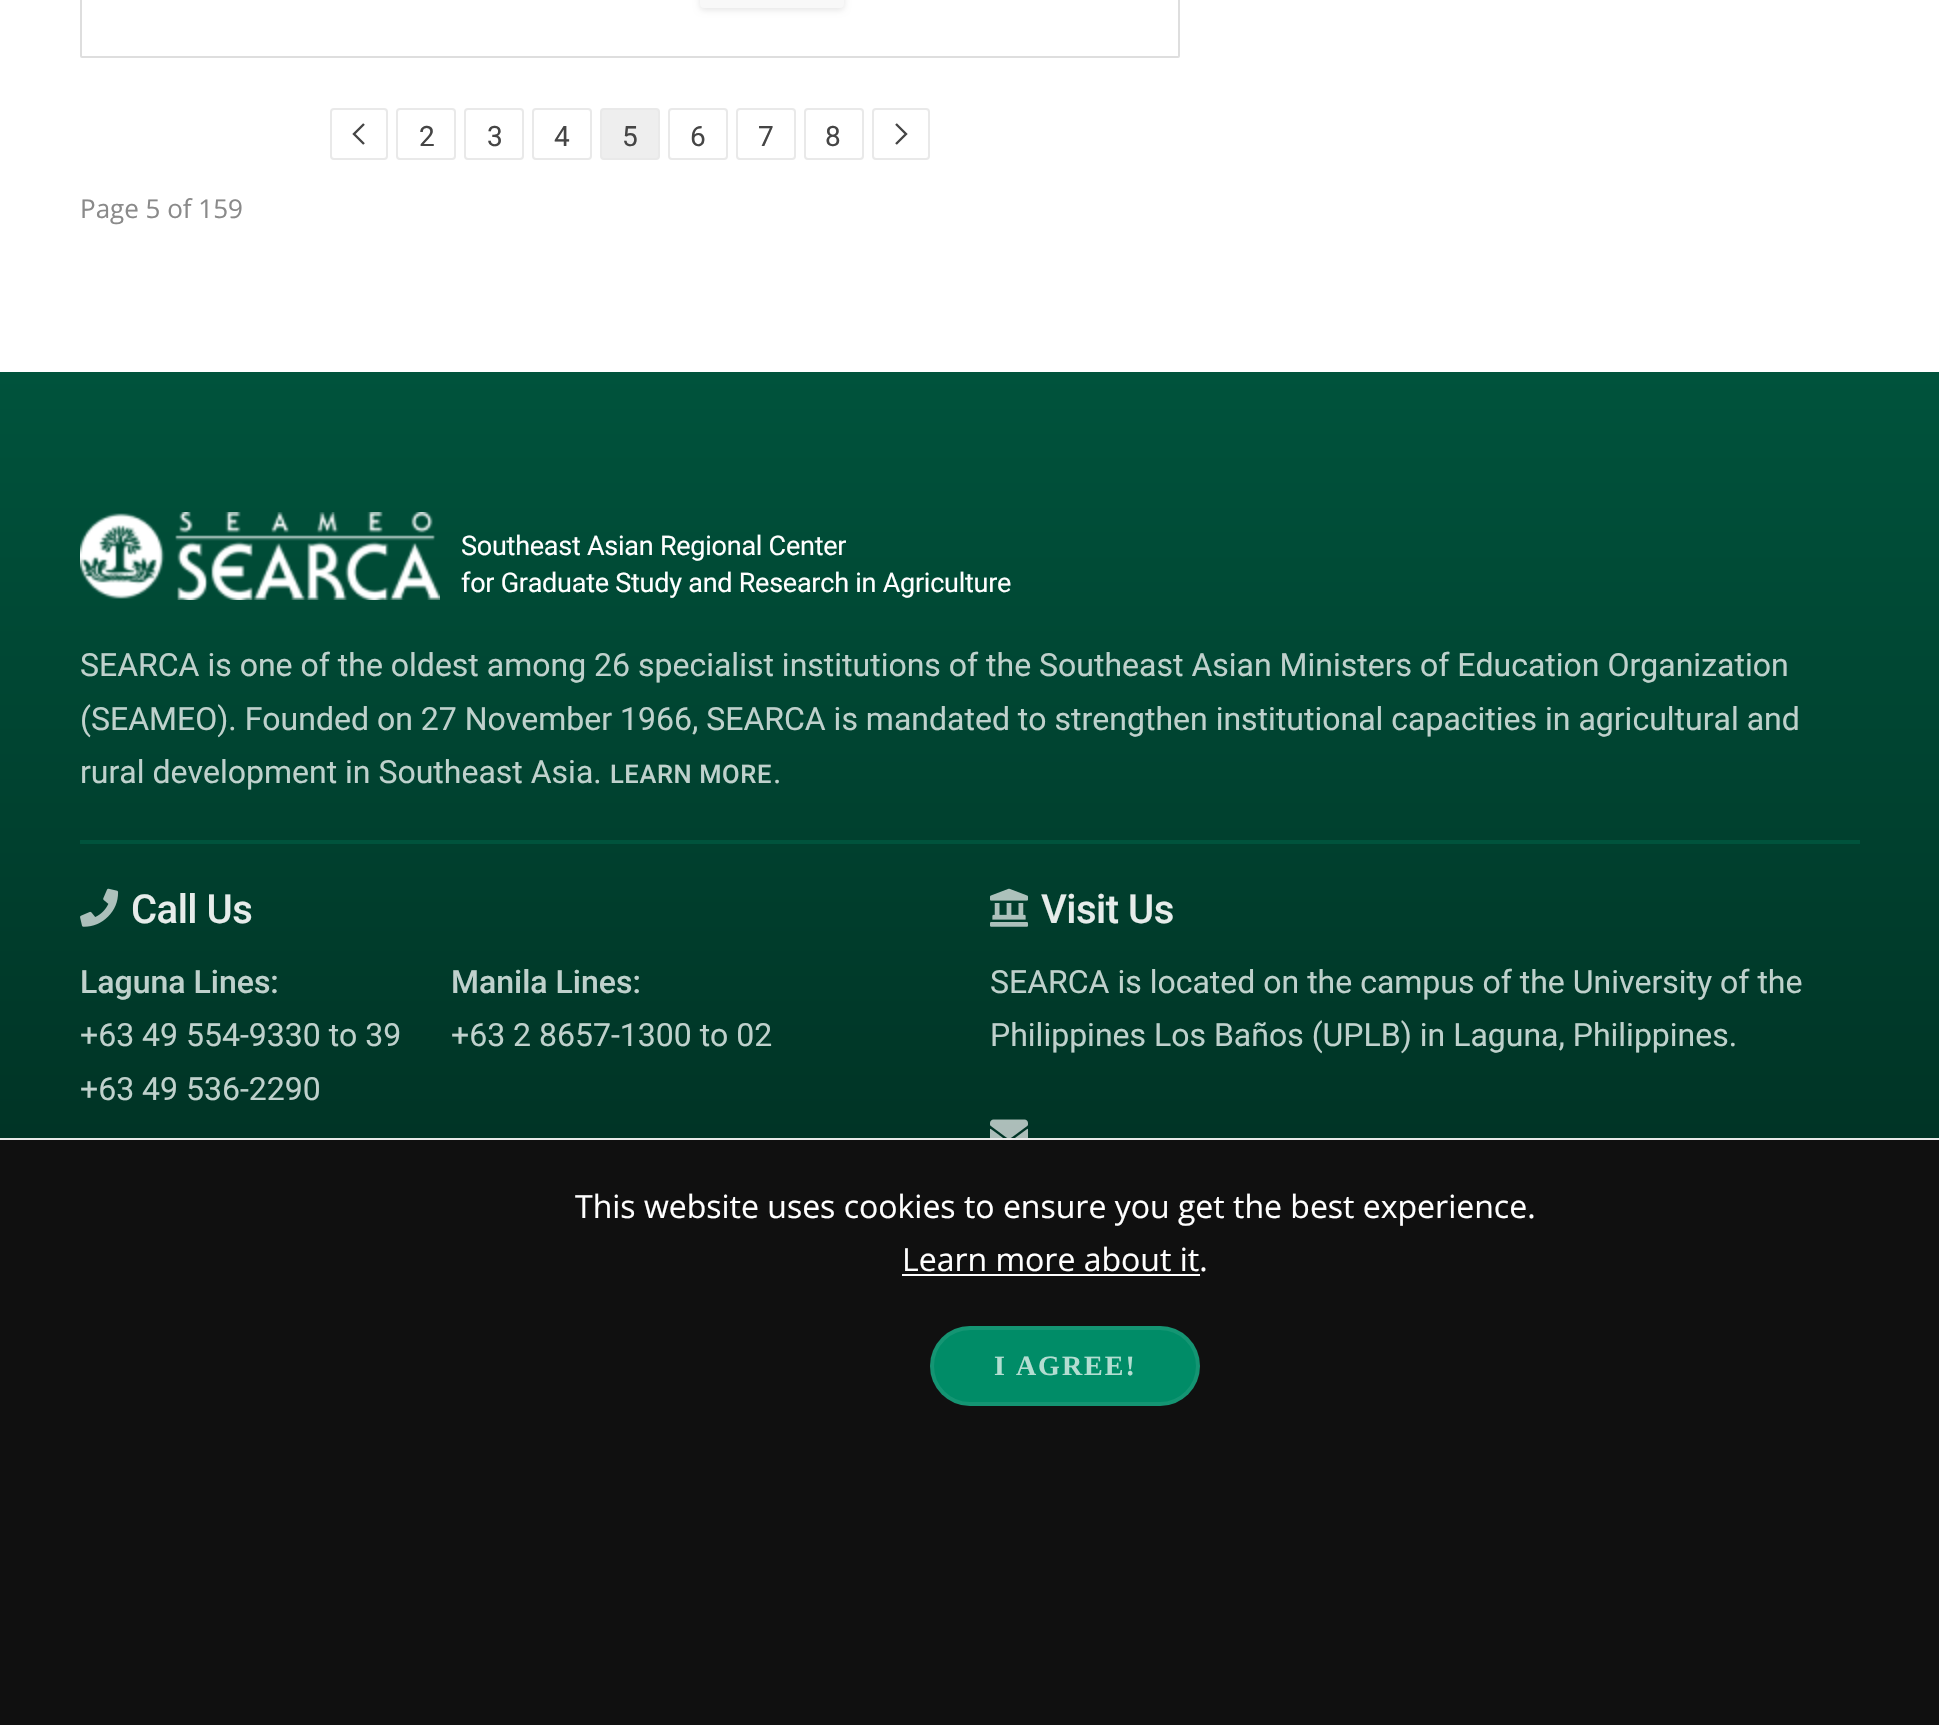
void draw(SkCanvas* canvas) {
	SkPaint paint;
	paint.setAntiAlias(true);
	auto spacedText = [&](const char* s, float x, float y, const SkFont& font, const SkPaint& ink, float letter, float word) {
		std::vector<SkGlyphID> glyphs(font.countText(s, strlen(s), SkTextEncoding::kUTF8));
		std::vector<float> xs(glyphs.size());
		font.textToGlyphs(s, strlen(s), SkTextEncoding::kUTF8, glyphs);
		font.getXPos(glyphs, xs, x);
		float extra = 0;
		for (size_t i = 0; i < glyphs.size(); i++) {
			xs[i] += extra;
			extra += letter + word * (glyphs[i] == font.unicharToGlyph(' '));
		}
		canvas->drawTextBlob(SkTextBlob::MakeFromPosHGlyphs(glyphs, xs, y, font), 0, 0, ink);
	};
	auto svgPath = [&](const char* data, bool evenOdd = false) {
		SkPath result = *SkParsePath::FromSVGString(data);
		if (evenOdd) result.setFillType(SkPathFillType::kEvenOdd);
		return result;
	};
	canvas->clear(0xffffffff);
	paint.setStroke(true);
	paint.setStrokeWidth(2);
	paint.setColor(0xffdedede);
	canvas->drawRoundRect(SkRect::MakeXYWH(81, -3, 1098, 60), 1, 1, paint);
	paint.setStroke(false);
	paint.setColor(0x1a000000);
	paint.setMaskFilter(SkMaskFilter::MakeBlur(kNormal_SkBlurStyle, 3));
	canvas->drawRoundRect(SkRect::MakeXYWH(700, -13, 144, 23), 4, 4, paint);
	paint.setMaskFilter(nullptr);
	paint.setColor(0xfff8f8f8);
	canvas->drawRoundRect(SkRect::MakeXYWH(700, -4, 144, 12), 4, 4, paint);
	paint.setStroke(true);
	paint.setColor(0xffe9e9e9);
	canvas->drawRoundRect(SkRect::MakeXYWH(331, 109, 56, 50), 3, 3, paint);
	paint.setStrokeWidth(2.4);
	paint.setColor(0xff454545);
	canvas->drawPath(svgPath("M364 124L354 134L364 144"), paint);
	paint.setStrokeWidth(2);
	paint.setColor(0xffe9e9e9);
	canvas->drawRoundRect(SkRect::MakeXYWH(397, 109, 58, 50), 3, 3, paint);
	SkFont f1(fontMgr->matchFamilyStyle("Roboto", SkFontStyle::Normal()), 28);
	f1.setSubpixel(true);
	paint.setStroke(false);
	paint.setColor(0xff454545);
	canvas->drawString("2", 419, 146, f1, paint);
	paint.setStroke(true);
	paint.setColor(0xffe9e9e9);
	canvas->drawRoundRect(SkRect::MakeXYWH(465, 109, 58, 50), 3, 3, paint);
	paint.setStroke(false);
	paint.setColor(0xff454545);
	canvas->drawString("3", 487, 146, f1, paint);
	paint.setStroke(true);
	paint.setColor(0xffe9e9e9);
	canvas->drawRoundRect(SkRect::MakeXYWH(533, 109, 58, 50), 3, 3, paint);
	paint.setStroke(false);
	paint.setColor(0xff454545);
	canvas->drawString("4", 554, 146, f1, paint);
	paint.setColor(0xffeeeeee);
	canvas->drawRoundRect(SkRect::MakeXYWH(601, 109, 58, 50), 3, 3, paint);
	paint.setStroke(true);
	paint.setColor(0xffe9e9e9);
	canvas->drawRoundRect(SkRect::MakeXYWH(601, 109, 58, 50), 3, 3, paint);
	paint.setStroke(false);
	paint.setColor(0xff454545);
	canvas->drawString("5", 622, 146, f1, paint);
	paint.setStroke(true);
	paint.setColor(0xffe9e9e9);
	canvas->drawRoundRect(SkRect::MakeXYWH(669, 109, 58, 50), 3, 3, paint);
	paint.setStroke(false);
	paint.setColor(0xff454545);
	canvas->drawString("6", 690, 146, f1, paint);
	paint.setStroke(true);
	paint.setColor(0xffe9e9e9);
	canvas->drawRoundRect(SkRect::MakeXYWH(737, 109, 58, 50), 3, 3, paint);
	paint.setStroke(false);
	paint.setColor(0xff454545);
	canvas->drawString("7", 758, 146, f1, paint);
	paint.setStroke(true);
	paint.setColor(0xffe9e9e9);
	canvas->drawRoundRect(SkRect::MakeXYWH(805, 109, 58, 50), 3, 3, paint);
	paint.setStroke(false);
	paint.setColor(0xff454545);
	canvas->drawString("8", 825, 146, f1, paint);
	paint.setStroke(true);
	paint.setColor(0xffe9e9e9);
	canvas->drawRoundRect(SkRect::MakeXYWH(873, 109, 56, 50), 3, 3, paint);
	paint.setStrokeWidth(2.4);
	paint.setColor(0xff454545);
	canvas->drawPath(svgPath("M896 124L906 134L896 144"), paint);
	SkFont f2(fontMgr->matchFamilyStyle("Open Sans", SkFontStyle::Normal()), 26);
	f2.setSubpixel(true);
	paint.setStroke(false);
	paint.setColor(0xff8a8a8a);
	canvas->drawString("Page 5 of 159", 80, 218, f2, paint);
	{
		const SkColor colors[] = {0xff00533c, 0xff001c14};
		const float stops[] = {0, 1};
		const SkPoint ends[] = {{970, 372}, {970, 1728}};
		paint.setShader(SkGradientShader::MakeLinear(ends, colors, stops, 2, SkTileMode::kClamp));
		paint.setAlpha(255);
	}
	canvas->drawRect(SkRect::MakeXYWH(0, 372, 1939, 766), paint);
	canvas->drawImageRect(SkImages::DeferredFromEncodedData(SkData::MakeFromFileName("img1.png")), SkRect::MakeXYWH(80, 512, 360, 88), SkSamplingOptions());
	SkFont f3(fontMgr->matchFamilyStyle("Roboto", SkFontStyle::Normal()), 27);
	f3.setSubpixel(true);
	paint.setShader(nullptr);
	paint.setColor(0xffffffff);
	spacedText("Southeast Asian Regional Center", 461, 555, f3, paint, -0.25, 0);
	spacedText("for Graduate Study and Research in Agriculture", 461, 592, f3, paint, -0.25, 0);
	SkFont f4(fontMgr->matchFamilyStyle("Roboto", SkFontStyle::Normal()), 32);
	f4.setSubpixel(true);
	paint.setColor(0xffbfd1cc);
	canvas->drawString("SEARCA is one of the oldest among 26 specialist institutions of the Southeast Asian Ministers of Education Organization", 80, 676, f4, paint);
	canvas->drawString("(SEAMEO). Founded on 27 November 1966, SEARCA is mandated to strengthen institutional capacities in agricultural and", 80, 730, f4, paint);
	canvas->drawString("rural development in Southeast Asia.", 80, 783, f4, paint);
	SkFont f5(fontMgr->matchFamilyStyle("Roboto", SkFontStyle(500, SkFontStyle::kNormal_Width, SkFontStyle::kUpright_Slant)), 25.5);
	f5.setSubpixel(true);
	spacedText("LEARN MORE", 610, 783, f5, paint, 0.6, 0);
	canvas->drawString(".", 773, 783, f4, paint);
	paint.setColor(0xff00533c);
	canvas->drawRect(SkRect::MakeXYWH(80, 840, 1780, 4), paint);
	canvas->drawImageRect(SkImages::DeferredFromEncodedData(SkData::MakeFromFileName("img2.png")), SkRect::MakeXYWH(80, 888, 39, 39), SkSamplingOptions());
	SkFont f6(fontMgr->matchFamilyStyle("Roboto", SkFontStyle(500, SkFontStyle::kNormal_Width, SkFontStyle::kUpright_Slant)), 40);
	f6.setSubpixel(true);
	paint.setColor(0xffe6ecea);
	spacedText("Call Us", 131, 923, f6, paint, -0.5, 0);
	SkFont f7(fontMgr->matchFamilyStyle("Roboto", SkFontStyle(500, SkFontStyle::kNormal_Width, SkFontStyle::kUpright_Slant)), 32);
	f7.setSubpixel(true);
	paint.setColor(0xffbfd1cc);
	canvas->drawString("Laguna Lines:", 80, 993, f7, paint);
	canvas->drawString("+63 49 554-9330 to 39", 80, 1046, f4, paint);
	canvas->drawString("+63 49 536-2290", 80, 1100, f4, paint);
	canvas->drawString("Manila Lines:", 451, 993, f7, paint);
	canvas->drawString("+63 2 8657-1300 to 02", 451, 1046, f4, paint);
	canvas->drawImageRect(SkImages::DeferredFromEncodedData(SkData::MakeFromFileName("img3.png")), SkRect::MakeXYWH(990, 888, 38, 39), SkSamplingOptions());
	paint.setColor(0xffe6ecea);
	spacedText("Visit Us", 1041, 923, f6, paint, -0.5, 0);
	paint.setColor(0xffbfd1cc);
	canvas->drawString("SEARCA is located on the campus of the University of the", 990, 993, f4, paint);
	canvas->drawString("Philippines Los Baños (UPLB) in Laguna, Philippines.", 990, 1046, f4, paint);
	canvas->drawImageRect(SkImages::DeferredFromEncodedData(SkData::MakeFromFileName("img4.png")), SkRect::MakeXYWH(990, 1119, 38, 19), SkSamplingOptions());
	paint.setColor(0xff101010);
	canvas->drawRect(SkRect::MakeXYWH(0, 1140, 1939, 585), paint);
	paint.setColor(0xffe9e9e9);
	canvas->drawRect(SkRect::MakeXYWH(0, 1138, 1939, 2), paint);
	SkFont f8(fontMgr->matchFamilyStyle("Open Sans", SkFontStyle::Normal()), 32);
	f8.setSubpixel(true);
	paint.setColor(0xffffffff);
	canvas->drawString("This website uses cookies to ensure you get the best experience.", 575, 1218, f8, paint);
	canvas->drawString("Learn more about it.", 902, 1271, f8, paint);
	canvas->drawRect(SkRect::MakeXYWH(902, 1274, 298, 2), paint);
	paint.setColor(0xff008c67);
	canvas->drawRoundRect(SkRect::MakeXYWH(930, 1326, 270, 80), 40, 40, paint);
	paint.setStroke(true);
	paint.setStrokeWidth(4);
	paint.setColor(0x14ffffff);
	canvas->drawRoundRect(SkRect::MakeXYWH(932, 1328, 266, 76), 38, 38, paint);
	SkFont f9(fontMgr->matchFamilyStyle("Liberation Serif", SkFontStyle::Bold()), 28);
	f9.setSubpixel(true);
	paint.setStroke(false);
	paint.setColor(0xffb3ddd1);
	spacedText("I AGREE!", 994, 1375, f9, paint, 2, 0);
}
